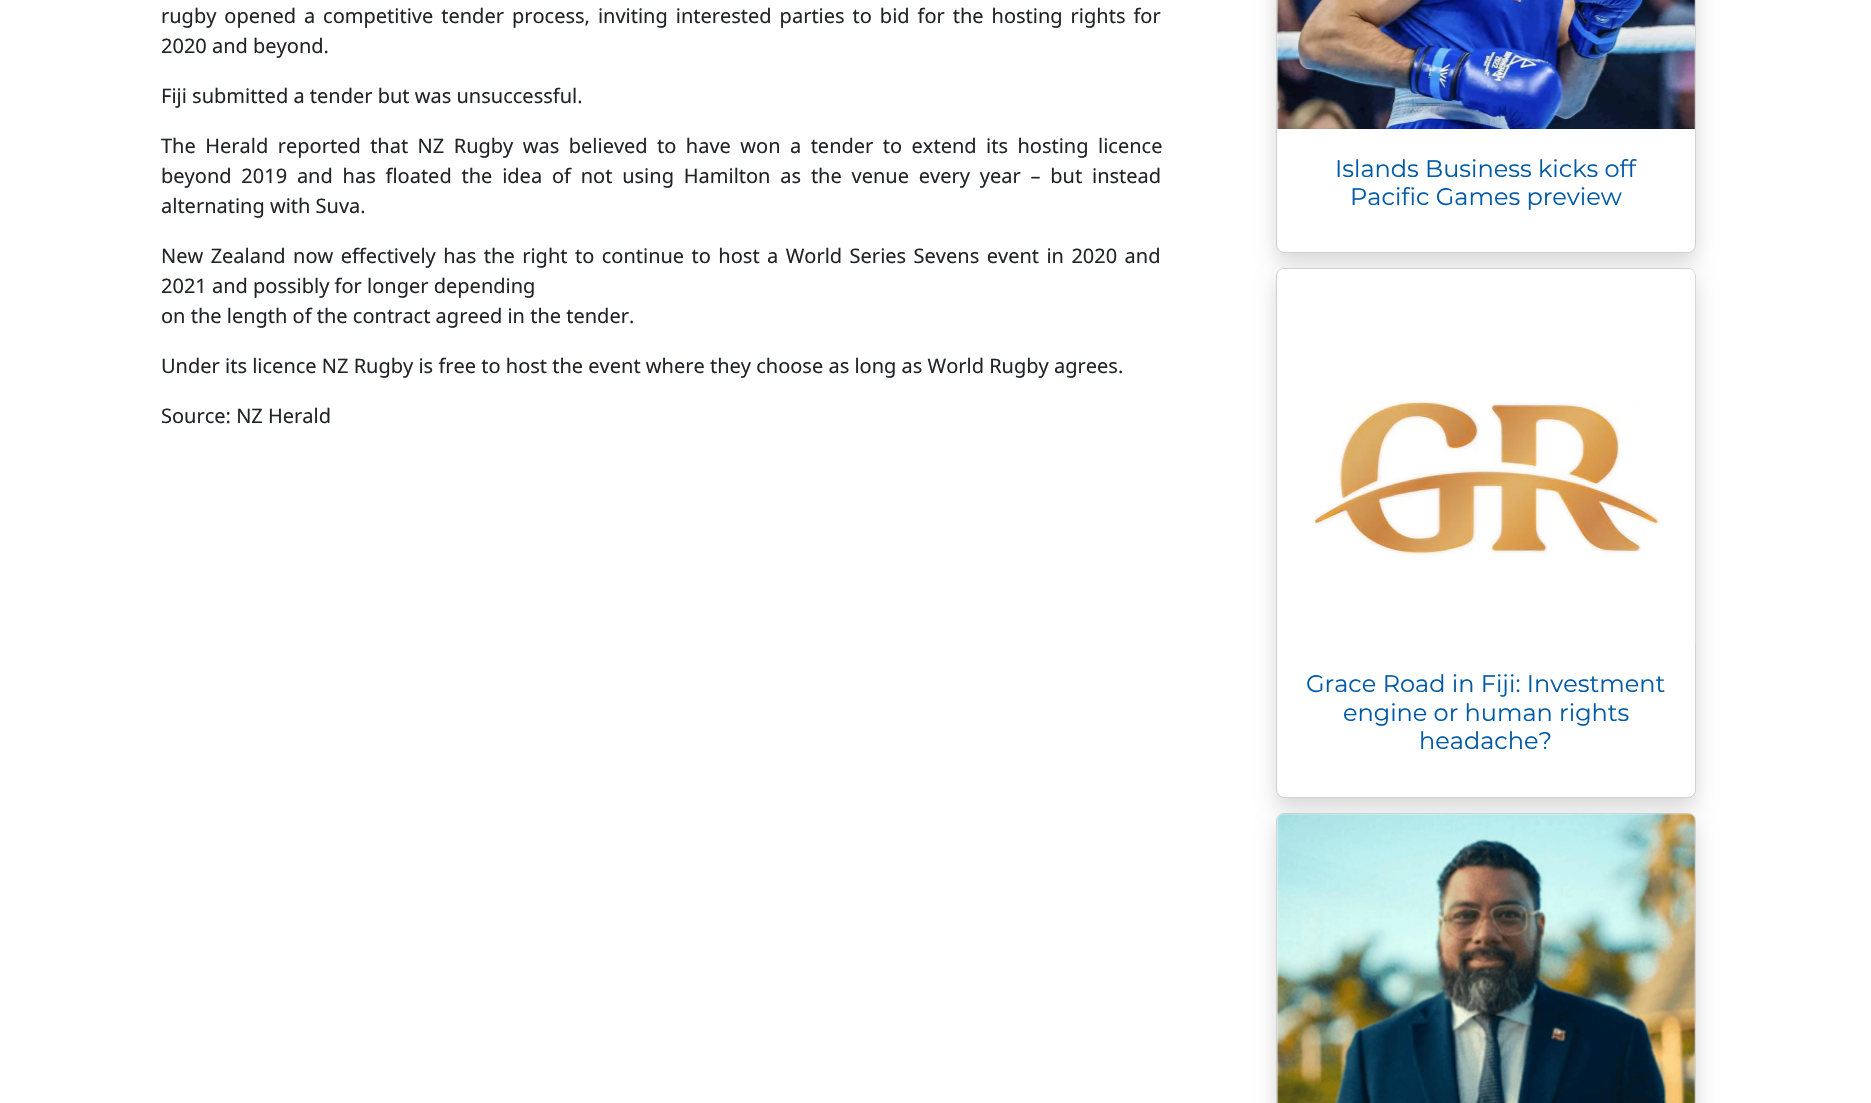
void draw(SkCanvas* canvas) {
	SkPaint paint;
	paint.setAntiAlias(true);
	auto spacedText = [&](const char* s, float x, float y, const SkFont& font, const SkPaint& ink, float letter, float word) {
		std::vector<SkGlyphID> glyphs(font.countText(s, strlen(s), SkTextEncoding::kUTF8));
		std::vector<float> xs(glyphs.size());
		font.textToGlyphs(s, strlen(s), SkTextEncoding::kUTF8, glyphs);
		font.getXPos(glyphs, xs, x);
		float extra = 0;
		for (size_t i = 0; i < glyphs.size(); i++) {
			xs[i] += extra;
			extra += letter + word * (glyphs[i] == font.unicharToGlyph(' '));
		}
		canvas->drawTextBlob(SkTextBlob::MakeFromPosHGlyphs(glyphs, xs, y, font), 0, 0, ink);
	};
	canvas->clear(0xffffffff);
	SkFont f1(fontMgr->matchFamilyStyle("Noto Sans", SkFontStyle::Normal()), 20);
	f1.setSubpixel(true);
	paint.setColor(0xff212529);
	spacedText("rugby opened a competitive tender process, inviting interested parties to bid for the hosting rights for", 161, 23, f1, paint, 0, 2.75);
	canvas->drawString("2020 and beyond.", 161, 53, f1, paint);
	canvas->drawString("Fiji submitted a tender but was unsuccessful.", 161, 103, f1, paint);
	spacedText("The Herald reported that NZ Rugby was believed to have won a tender to extend its hosting licence", 161, 153, f1, paint, 0, 4.25);
	spacedText("beyond 2019 and has floated the idea of not using Hamilton as the venue every year – but instead", 161, 183, f1, paint, 0, 4.6);
	canvas->drawString("alternating with Suva.", 161, 213, f1, paint);
	spacedText("New Zealand now effectively has the right to continue to host a World Series Sevens event in 2020 and", 161, 263, f1, paint, 0, 2.25);
	canvas->drawString("2021 and possibly for longer depending", 161, 293, f1, paint);
	canvas->drawString("on the length of the contract agreed in the tender.", 161, 323, f1, paint);
	canvas->drawString("Under its licence NZ Rugby is free to host the event where they choose as long as World Rugby agrees.", 161, 373, f1, paint);
	canvas->drawString("Source: NZ Herald", 161, 423, f1, paint);
	paint.setColor(0x26000000);
	paint.setMaskFilter(SkMaskFilter::MakeBlur(kNormal_SkBlurStyle, 10));
	canvas->drawRoundRect(SkRect::MakeXYWH(1276, -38, 420, 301), 8, 8, paint);
	paint.setMaskFilter(nullptr);
	paint.setColor(0xffffffff);
	canvas->drawRoundRect(SkRect::MakeXYWH(1276, -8, 420, 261), 8, 8, paint);
	paint.setStroke(true);
	paint.setStrokeWidth(1);
	paint.setColor(0x2e000000);
	canvas->drawRoundRect(SkRect::MakeXYWH(1276.5, -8.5, 419, 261), 7.5, 7.5, paint);
	canvas->drawImageRect(SkImages::DeferredFromEncodedData(SkData::MakeFromFileName("img1.png")), SkRect::MakeXYWH(1277, 0, 418, 129), SkSamplingOptions());
	SkFont f2(fontMgr->matchFamilyStyle("Montserrat", SkFontStyle::Normal()), 24);
	f2.setSubpixel(true);
	paint.setStroke(false);
	paint.setColor(0xff005aa7);
	canvas->drawString("Islands Business kicks off", 1335, 177, f2, paint);
	canvas->drawString("Pacific Games preview", 1350, 205, f2, paint);
	paint.setColor(0x26000000);
	paint.setMaskFilter(SkMaskFilter::MakeBlur(kNormal_SkBlurStyle, 10));
	canvas->drawRoundRect(SkRect::MakeXYWH(1276, 278, 420, 530), 8, 8, paint);
	paint.setMaskFilter(nullptr);
	paint.setColor(0xffffffff);
	canvas->drawRoundRect(SkRect::MakeXYWH(1276, 268, 420, 530), 8, 8, paint);
	paint.setStroke(true);
	paint.setColor(0x2e000000);
	canvas->drawRoundRect(SkRect::MakeXYWH(1276.5, 268.5, 419, 529), 7.5, 7.5, paint);
	canvas->drawImageRect(SkImages::DeferredFromEncodedData(SkData::MakeFromFileName("img2.png")), SkRect::MakeXYWH(1277, 269, 419, 375), SkSamplingOptions());
	paint.setStroke(false);
	paint.setColor(0xff005aa7);
	canvas->drawString("Grace Road in Fiji: Investment", 1306, 692, f2, paint);
	canvas->drawString("engine or human rights", 1343, 721, f2, paint);
	canvas->drawString("headache?", 1419, 749, f2, paint);
	paint.setColor(0x26000000);
	paint.setMaskFilter(SkMaskFilter::MakeBlur(kNormal_SkBlurStyle, 10));
	canvas->drawRoundRect(SkRect::MakeXYWH(1276, 823, 420, 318), 8, 8, paint);
	paint.setMaskFilter(nullptr);
	paint.setColor(0xffffffff);
	canvas->drawRoundRect(SkRect::MakeXYWH(1276, 813, 420, 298), 8, 8, paint);
	paint.setStroke(true);
	paint.setColor(0x2e000000);
	canvas->drawRoundRect(SkRect::MakeXYWH(1276.5, 813.5, 419, 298), 7.5, 7.5, paint);
	canvas->drawImageRect(SkImages::DeferredFromEncodedData(SkData::MakeFromFileName("img3.png")), SkRect::MakeXYWH(1277, 813, 418, 290), SkSamplingOptions());
}
